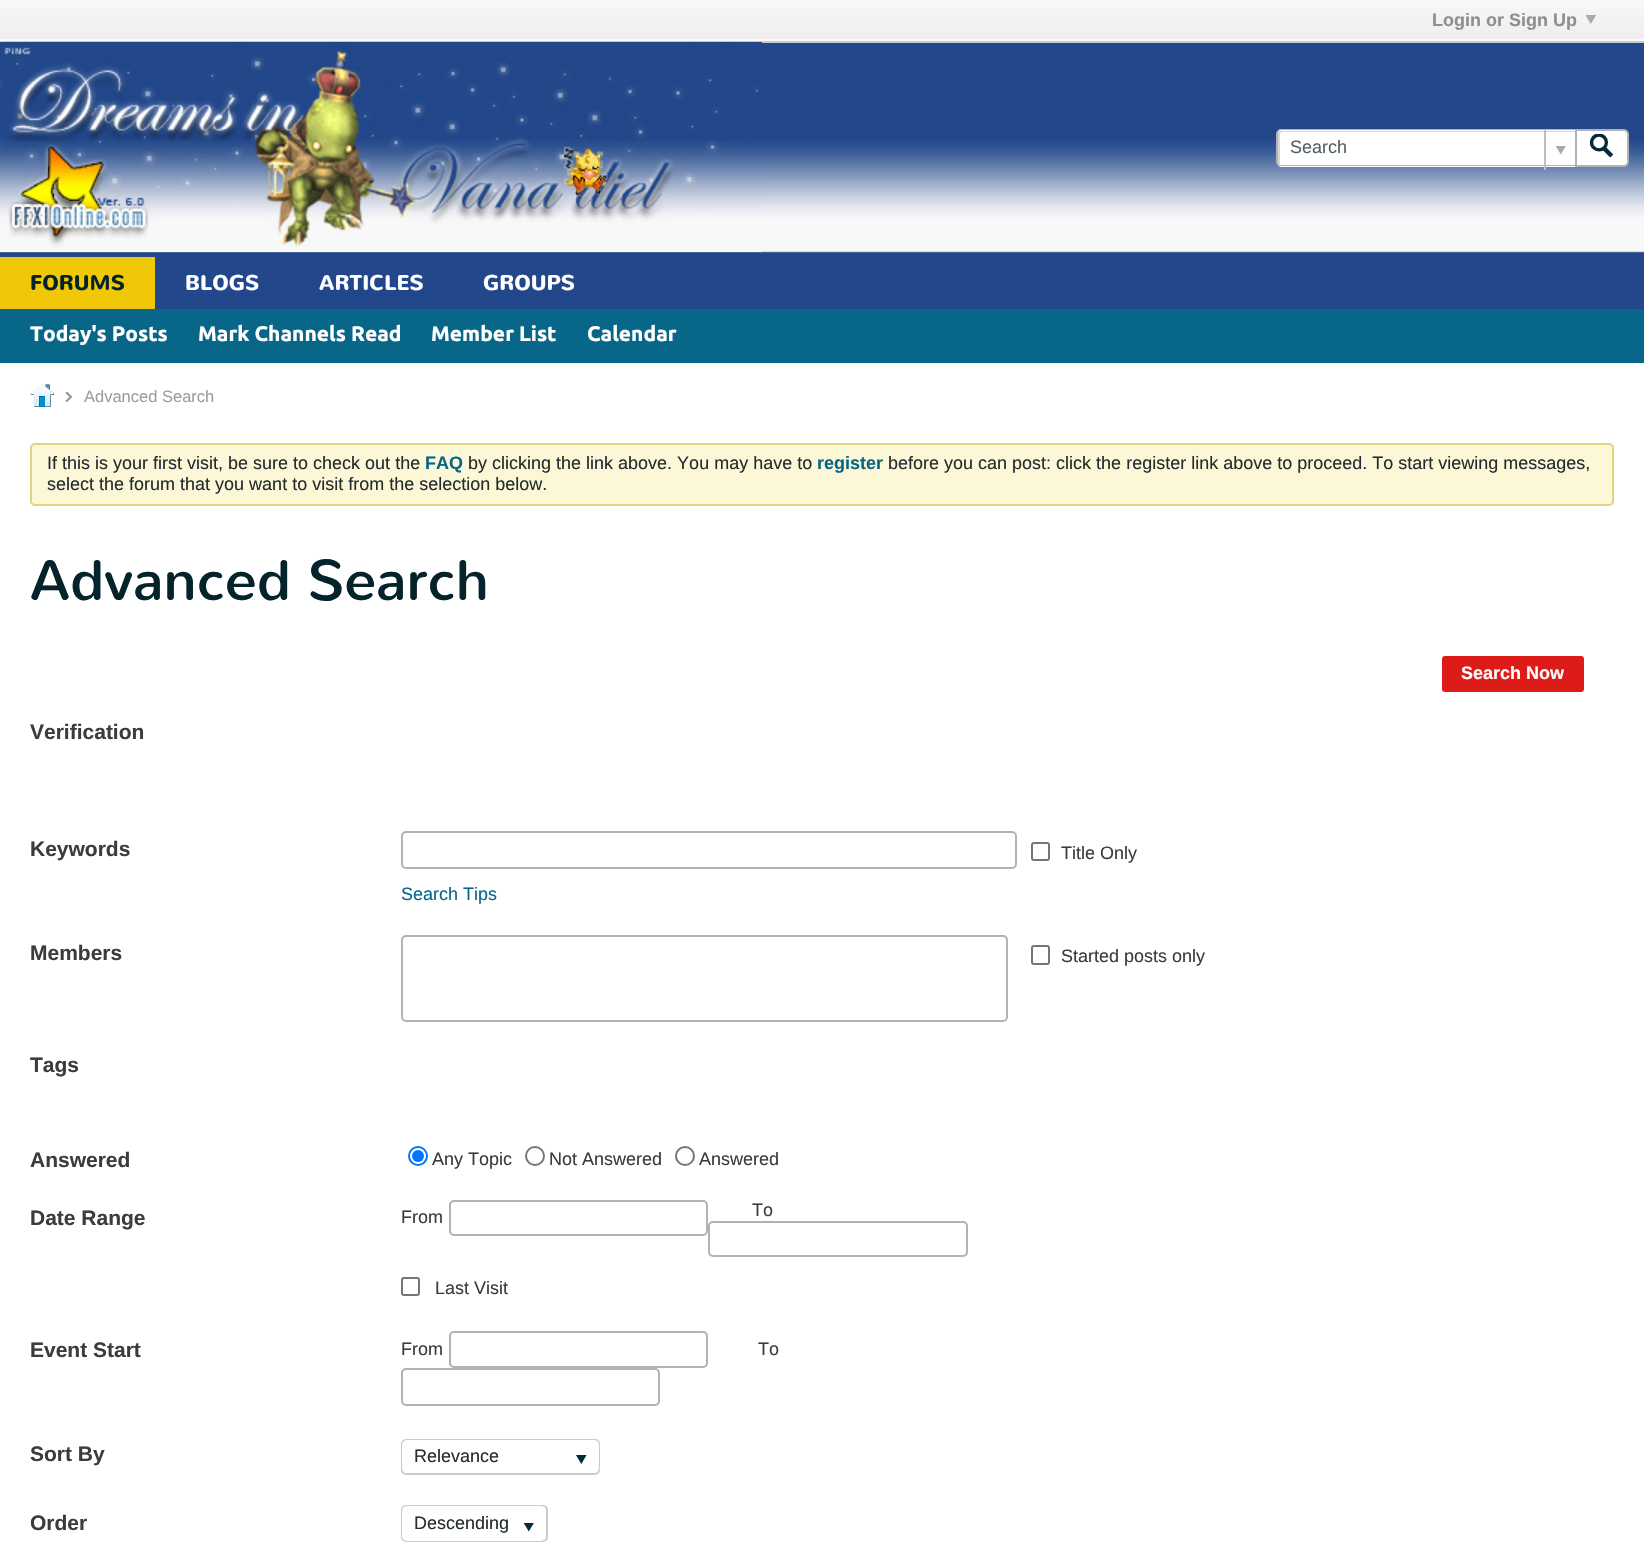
void draw(SkCanvas* canvas) {
	SkPaint paint;
	paint.setAntiAlias(true);
	auto svgPath = [&](const char* data, bool evenOdd = false) {
		SkPath result = *SkParsePath::FromSVGString(data);
		if (evenOdd) result.setFillType(SkPathFillType::kEvenOdd);
		return result;
	};
	canvas->clear(0xffffffff);
	{
		const SkColor colors[] = {0xfff8f8f8, 0xffefedee};
		const float stops[] = {0, 1};
		const SkPoint ends[] = {{822, 0}, {822, 42}};
		paint.setShader(SkGradientShader::MakeLinear(ends, colors, stops, 2, SkTileMode::kClamp));
		paint.setAlpha(255);
	}
	canvas->drawRect(SkRect::MakeXYWH(0, 0, 1644, 39), paint);
	SkFont f1(fontMgr->matchFamilyStyle("Liberation Sans", SkFontStyle::Bold()), 18);
	f1.setSubpixel(true);
	paint.setShader(nullptr);
	paint.setColor(0xff8e8e8e);
	canvas->drawString("Login or Sign Up", 1432, 26, f1, paint);
	canvas->drawImageRect(SkImages::DeferredFromEncodedData(SkData::MakeFromFileName("img1.png")), SkRect::MakeXYWH(1586, 15, 10, 9), SkSamplingOptions());
	paint.setColor(0xfffafafa);
	canvas->drawRect(SkRect::MakeXYWH(0, 39, 1644, 2), paint);
	paint.setColor(0xffc7c8c9);
	canvas->drawRect(SkRect::MakeXYWH(0, 41, 1644, 2), paint);
	paint.setColor(0xff086788);
	canvas->drawRect(SkRect::MakeXYWH(0, 309, 1644, 54), paint);
	canvas->drawImageRect(SkImages::DeferredFromEncodedData(SkData::MakeFromFileName("img2.png")), SkRect::MakeXYWH(0, 43, 1644, 266), SkSamplingOptions());
	canvas->drawImageRect(SkImages::DeferredFromEncodedData(SkData::MakeFromFileName("img3.png")), SkRect::MakeXYWH(0, 42, 159, 210), SkSamplingOptions());
	canvas->drawImageRect(SkImages::DeferredFromEncodedData(SkData::MakeFromFileName("img4.png")), SkRect::MakeXYWH(159, 42, 441, 210), SkSamplingOptions());
	canvas->drawImageRect(SkImages::DeferredFromEncodedData(SkData::MakeFromFileName("img5.png")), SkRect::MakeXYWH(600, 42, 162, 210), SkSamplingOptions());
	paint.setColor(0xffffffff);
	canvas->drawPath(svgPath("M1282 129H1575V167H1282C1279 167 1277 165 1277 162V134C1277 131 1279 129 1282 129Z"), paint);
	paint.setColor(0xffd5d5d5);
	canvas->drawPath(svgPath("M1282 132H1575V131H1281C1279 131 1278 132 1278 134V162C1278 163 1279 165 1280 165V140C1280 139 1279 132 1282 132Z"), paint);
	paint.setColor(0xffaeb3b6);
	canvas->drawPath(svgPath("M1281 129H1575V166H1281C1279 166 1276 164 1276 162V134C1276 131 1279 129 1281 129ZM1281 130H1575V165H1281C1279 165 1278 164 1278 162V134C1278 132 1279 130 1281 130Z", true), paint);
	SkFont f2(fontMgr->matchFamilyStyle("Liberation Sans", SkFontStyle::Normal()), 18);
	f2.setSubpixel(true);
	paint.setColor(0xff556065);
	canvas->drawString("Search", 1290, 153, f2, paint);
	paint.setColor(0xffbdbdbd);
	canvas->drawRect(SkRect::MakeXYWH(1544, 129, 2, 41), paint);
	canvas->drawImageRect(SkImages::DeferredFromEncodedData(SkData::MakeFromFileName("img6.png")), SkRect::MakeXYWH(1556, 146, 10, 9), SkSamplingOptions());
	paint.setColor(0xffffffff);
	canvas->drawPath(svgPath("M1576 130H1624C1626 130 1628 132 1628 134V162C1628 164 1626 166 1624 166H1576Z"), paint);
	paint.setStroke(true);
	paint.setStrokeWidth(2);
	paint.setColor(0xffaeb3b6);
	canvas->drawPath(svgPath("M1576 130H1624C1626 130 1628 132 1628 134V162C1628 164 1626 166 1624 166H1576Z"), paint);
	canvas->drawImageRect(SkImages::DeferredFromEncodedData(SkData::MakeFromFileName("img7.png")), SkRect::MakeXYWH(1590, 134, 24, 24), SkSamplingOptions());
	paint.setStroke(false);
	paint.setColor(0xfff0c808);
	canvas->drawRect(SkRect::MakeXYWH(0, 257, 155, 52), paint);
	SkFont f3(fontMgr->matchFamilyStyle("Nunito", SkFontStyle::Bold()), 21);
	f3.setSubpixel(true);
	paint.setColor(0xff04232a);
	canvas->drawString("FORUMS", 30, 290, f3, paint);
	paint.setColor(0xffffffff);
	canvas->drawString("BLOGS", 185, 290, f3, paint);
	canvas->drawString("ARTICLES", 319, 290, f3, paint);
	canvas->drawString("GROUPS", 483, 290, f3, paint);
	SkFont f4(fontMgr->matchFamilyStyle("Ubuntu", SkFontStyle::Bold()), 21);
	f4.setSubpixel(true);
	canvas->drawString("Today's Posts", 30, 341, f4, paint);
	canvas->drawString("Mark Channels Read", 198, 341, f4, paint);
	canvas->drawString("Member List", 431, 341, f4, paint);
	canvas->drawString("Calendar", 587, 341, f4, paint);
	canvas->drawImageRect(SkImages::DeferredFromEncodedData(SkData::MakeFromFileName("img8.png")), SkRect::MakeXYWH(30, 384, 24, 23), SkSamplingOptions());
	canvas->drawImageRect(SkImages::DeferredFromEncodedData(SkData::MakeFromFileName("img9.png")), SkRect::MakeXYWH(65, 392, 7, 10), SkSamplingOptions());
	SkFont f5(fontMgr->matchFamilyStyle("Liberation Sans", SkFontStyle::Normal()), 16.5);
	f5.setSubpixel(true);
	paint.setColor(0xff9e9d9d);
	canvas->drawString("Advanced Search", 84, 402, f5, paint);
	paint.setColor(0xfffcf7d7);
	canvas->drawRoundRect(SkRect::MakeXYWH(31, 444, 1582, 61), 4, 4, paint);
	paint.setStroke(true);
	paint.setColor(0xffe1d47e);
	canvas->drawRoundRect(SkRect::MakeXYWH(31, 444, 1582, 61), 4, 4, paint);
	paint.setStroke(false);
	paint.setColor(0xff252c2f);
	canvas->drawString("If this is your first visit, be sure to check out the", 47, 469, f2, paint);
	paint.setColor(0xff086788);
	canvas->drawString("FAQ", 425, 469, f1, paint);
	paint.setColor(0xff252c2f);
	canvas->drawString("by clicking the link above. You may have to", 468, 469, f2, paint);
	paint.setColor(0xff086788);
	canvas->drawString("register", 817, 469, f1, paint);
	paint.setColor(0xff252c2f);
	canvas->drawString("before you can post: click the register link above to proceed. To start viewing messages,", 888, 469, f2, paint);
	canvas->drawString("select the forum that you want to visit from the selection below.", 47, 490, f2, paint);
	SkFont f6(fontMgr->matchFamilyStyle("Nunito", SkFontStyle::Normal()), 57);
	f6.setSubpixel(true);
	paint.setColor(0xff04232a);
	canvas->drawString("Advanced Search", 30, 600, f6, paint);
	paint.setColor(0xffdd1c1a);
	canvas->drawRoundRect(SkRect::MakeXYWH(1443, 657, 140, 34), 2, 2, paint);
	paint.setStroke(true);
	canvas->drawRoundRect(SkRect::MakeXYWH(1443, 657, 140, 34), 2, 2, paint);
	paint.setStroke(false);
	paint.setColor(0xffffffff);
	canvas->drawString("Search Now", 1461, 679, f1, paint);
	SkFont f7(fontMgr->matchFamilyStyle("Liberation Sans", SkFontStyle::Bold()), 21);
	f7.setSubpixel(true);
	paint.setColor(0xff3c3c3c);
	canvas->drawString("Verification", 30, 739, f7, paint);
	canvas->drawString("Keywords", 30, 856, f7, paint);
	paint.setStroke(true);
	paint.setColor(0xff767676);
	canvas->drawRoundRect(SkRect::MakeXYWH(1032, 843, 17, 17), 2, 2, paint);
	paint.setStroke(false);
	paint.setColor(0xff3c3c3c);
	canvas->drawString("Title Only", 1061, 859, f2, paint);
	paint.setStroke(true);
	paint.setColor(0xffaeb3b6);
	canvas->drawRoundRect(SkRect::MakeXYWH(402, 832, 614, 36), 4, 4, paint);
	paint.setStroke(false);
	paint.setColor(0xff086788);
	canvas->drawString("Search Tips", 401, 900, f2, paint);
	paint.setColor(0xff3c3c3c);
	canvas->drawString("Members", 30, 960, f7, paint);
	paint.setStroke(true);
	paint.setColor(0xffaeb3b6);
	canvas->drawRoundRect(SkRect::MakeXYWH(402, 936, 605, 85), 4, 4, paint);
	paint.setColor(0xff767676);
	canvas->drawRoundRect(SkRect::MakeXYWH(1032, 946, 17, 18), 2, 2, paint);
	paint.setStroke(false);
	paint.setColor(0xff3c3c3c);
	canvas->drawString("Started posts only", 1061, 962, f2, paint);
	canvas->drawString("Tags", 30, 1072, f7, paint);
	canvas->drawString("Answered", 30, 1167, f7, paint);
	paint.setStroke(true);
	paint.setColor(0xff0075ff);
	canvas->drawCircle(418, 1156, 9, paint);
	paint.setStroke(false);
	canvas->drawCircle(418, 1156, 6, paint);
	paint.setColor(0xff3c3c3c);
	canvas->drawString("Any Topic", 432, 1165, f2, paint);
	paint.setStroke(true);
	paint.setColor(0xff767676);
	canvas->drawCircle(535, 1156, 9, paint);
	paint.setStroke(false);
	paint.setColor(0xff3c3c3c);
	canvas->drawString("Not Answered", 549, 1165, f2, paint);
	paint.setStroke(true);
	paint.setColor(0xff767676);
	canvas->drawCircle(685, 1156, 9, paint);
	paint.setStroke(false);
	paint.setColor(0xff3c3c3c);
	canvas->drawString("Answered", 699, 1165, f2, paint);
	canvas->drawString("Date Range", 30, 1225, f7, paint);
	canvas->drawString("From", 401, 1223, f2, paint);
	paint.setStroke(true);
	paint.setColor(0xffaeb3b6);
	canvas->drawRoundRect(SkRect::MakeXYWH(450, 1201, 257, 34), 4, 4, paint);
	paint.setStroke(false);
	paint.setColor(0xff3c3c3c);
	canvas->drawString("To", 752, 1216, f2, paint);
	paint.setStroke(true);
	paint.setColor(0xffaeb3b6);
	canvas->drawRoundRect(SkRect::MakeXYWH(709, 1222, 258, 34), 4, 4, paint);
	paint.setColor(0xff767676);
	canvas->drawRoundRect(SkRect::MakeXYWH(402, 1278, 17, 17), 2, 2, paint);
	paint.setStroke(false);
	paint.setColor(0xff3c3c3c);
	canvas->drawString("Last Visit", 435, 1294, f2, paint);
	canvas->drawString("Event Start", 30, 1357, f7, paint);
	canvas->drawString("From", 401, 1355, f2, paint);
	paint.setStroke(true);
	paint.setColor(0xffaeb3b6);
	canvas->drawRoundRect(SkRect::MakeXYWH(450, 1332, 257, 35), 4, 4, paint);
	paint.setStroke(false);
	paint.setColor(0xff3c3c3c);
	canvas->drawString("To", 758, 1355, f2, paint);
	paint.setStroke(true);
	paint.setColor(0xffaeb3b6);
	canvas->drawRoundRect(SkRect::MakeXYWH(402, 1369, 257, 36), 4, 4, paint);
	paint.setStroke(false);
	paint.setColor(0xff3c3c3c);
	canvas->drawString("Sort By", 30, 1461, f7, paint);
	paint.setStroke(true);
	paint.setColor(0xffc8ccce);
	canvas->drawRoundRect(SkRect::MakeXYWH(402, 1440, 197, 34), 4, 4, paint);
	paint.setStroke(false);
	paint.setColor(0xffffffff);
	canvas->drawRoundRect(SkRect::MakeXYWH(402, 1440, 197, 33), 5, 5, paint);
	paint.setColor(0xff252c2f);
	canvas->drawString("Relevance", 414, 1462, f2, paint);
	canvas->drawImageRect(SkImages::DeferredFromEncodedData(SkData::MakeFromFileName("img10.png")), SkRect::MakeXYWH(576, 1455, 11, 9), SkSamplingOptions());
	paint.setColor(0xff3c3c3c);
	canvas->drawString("Order", 30, 1530, f7, paint);
	paint.setStroke(true);
	paint.setColor(0xffc8ccce);
	canvas->drawRoundRect(SkRect::MakeXYWH(402, 1506, 145, 35), 4, 4, paint);
	paint.setStroke(false);
	paint.setColor(0xffffffff);
	canvas->drawRoundRect(SkRect::MakeXYWH(402, 1506, 144, 35), 5, 5, paint);
	paint.setColor(0xff252c2f);
	canvas->drawString("Descending", 414, 1529, f2, paint);
	canvas->drawImageRect(SkImages::DeferredFromEncodedData(SkData::MakeFromFileName("img11.png")), SkRect::MakeXYWH(524, 1523, 10, 9), SkSamplingOptions());
}
